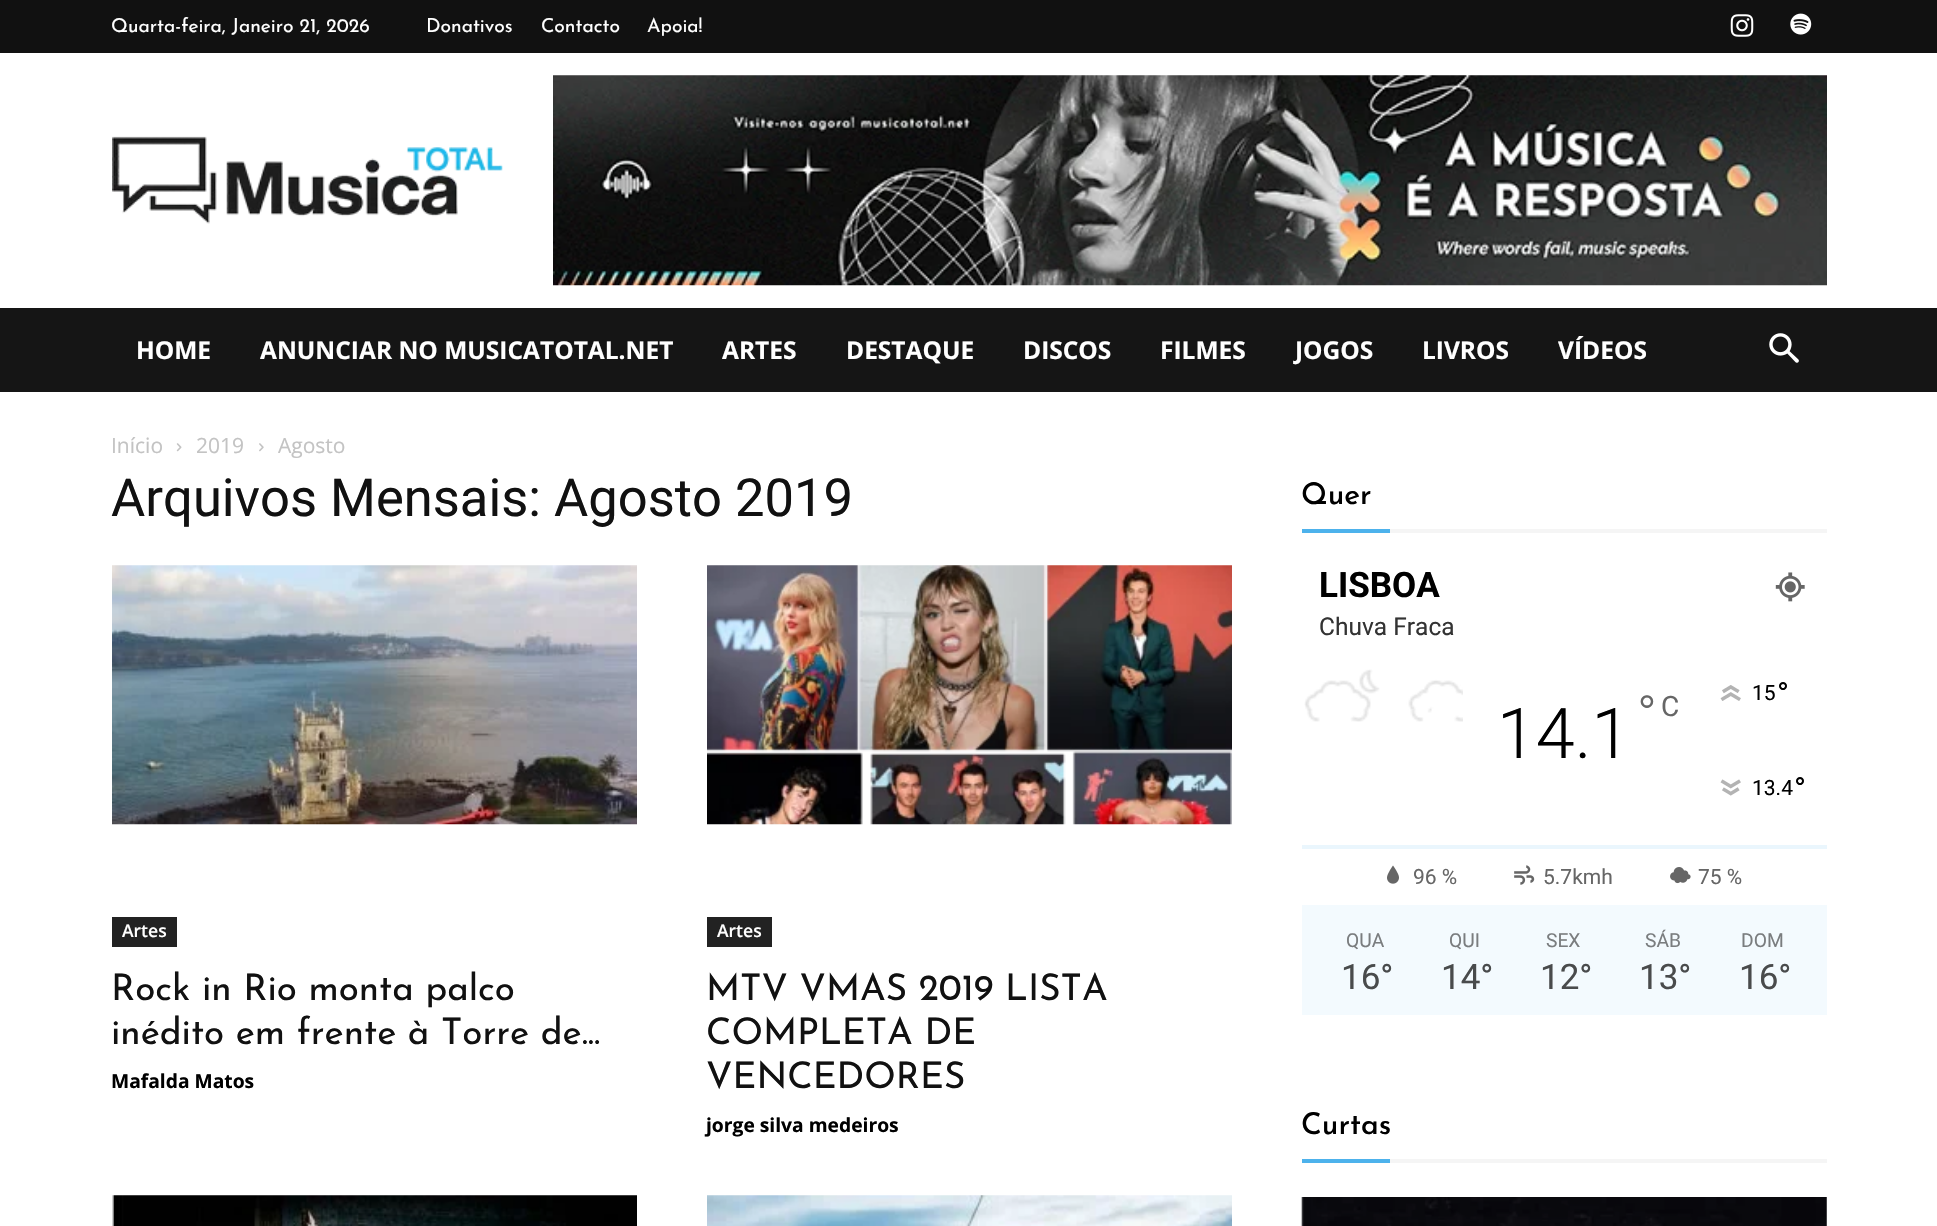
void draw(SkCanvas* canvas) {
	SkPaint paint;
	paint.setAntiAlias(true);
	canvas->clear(0xffffffff);
	paint.setColor(0xff111111);
	canvas->drawRect(SkRect::MakeXYWH(0, 0, 1937, 53), paint);
	SkFont f1(fontMgr->matchFamilyStyle("Josefin Sans", SkFontStyle::Normal()), 19.25);
	f1.setSubpixel(true);
	paint.setColor(0xffffffff);
	canvas->drawString("Quarta-feira, Janeiro 21, 2026", 111, 32, f1, paint);
	canvas->drawString("Donativos", 426, 32, f1, paint);
	canvas->drawString("Contacto", 541, 32, f1, paint);
	canvas->drawString("Apoia!", 647, 32, f1, paint);
	canvas->drawImageRect(SkImages::DeferredFromEncodedData(SkData::MakeFromFileName("img1.png")), SkRect::MakeXYWH(1730, 14, 24, 23), SkSamplingOptions());
	canvas->drawImageRect(SkImages::DeferredFromEncodedData(SkData::MakeFromFileName("img2.png")), SkRect::MakeXYWH(1790, 13, 22, 22), SkSamplingOptions());
	canvas->drawImageRect(SkImages::DeferredFromEncodedData(SkData::MakeFromFileName("img3.png")), SkRect::MakeXYWH(112, 136, 391, 88), SkSamplingOptions());
	canvas->drawImageRect(SkImages::DeferredFromEncodedData(SkData::MakeFromFileName("img4.png")), SkRect::MakeXYWH(553, 75, 1274, 211), SkSamplingOptions());
	paint.setColor(0xff151515);
	canvas->drawRect(SkRect::MakeXYWH(0, 308, 1937, 84), paint);
	SkFont f2(fontMgr->matchFamilyStyle("Open Sans", SkFontStyle::Bold()), 24.5);
	f2.setSubpixel(true);
	paint.setColor(0xffffffff);
	canvas->drawString("HOME", 136, 359, f2, paint);
	canvas->drawString("ANUNCIAR NO MUSICATOTAL.NET", 260, 359, f2, paint);
	canvas->drawString("ARTES", 722, 359, f2, paint);
	canvas->drawString("DESTAQUE", 846, 359, f2, paint);
	canvas->drawString("DISCOS", 1023, 359, f2, paint);
	canvas->drawString("FILMES", 1160, 359, f2, paint);
	canvas->drawString("JOGOS", 1295, 359, f2, paint);
	canvas->drawString("LIVROS", 1422, 359, f2, paint);
	canvas->drawString("VÍDEOS", 1558, 359, f2, paint);
	canvas->drawImageRect(SkImages::DeferredFromEncodedData(SkData::MakeFromFileName("img5.png")), SkRect::MakeXYWH(1769, 333, 30, 30), SkSamplingOptions());
	SkFont f3(fontMgr->matchFamilyStyle("Open Sans", SkFontStyle::Normal()), 21);
	f3.setSubpixel(true);
	paint.setColor(0xffc3c3c3);
	canvas->drawString("Início", 111, 453, f3, paint);
	canvas->drawImageRect(SkImages::DeferredFromEncodedData(SkData::MakeFromFileName("img6.png")), SkRect::MakeXYWH(176, 443, 6, 9), SkSamplingOptions());
	canvas->drawString("2019", 196, 453, f3, paint);
	canvas->drawImageRect(SkImages::DeferredFromEncodedData(SkData::MakeFromFileName("img7.png")), SkRect::MakeXYWH(259, 443, 5, 9), SkSamplingOptions());
	canvas->drawString("Agosto", 278, 453, f3, paint);
	SkFont f4(fontMgr->matchFamilyStyle("Roboto", SkFontStyle::Normal()), 52.5);
	f4.setSubpixel(true);
	paint.setColor(0xff111111);
	canvas->drawString("Arquivos Mensais: Agosto 2019", 111, 516, f4, paint);
	canvas->drawImageRect(SkImages::DeferredFromEncodedData(SkData::MakeFromFileName("img8.png")), SkRect::MakeXYWH(112, 565, 525, 260), SkSamplingOptions());
	paint.setColor(0xff222222);
	canvas->drawRect(SkRect::MakeXYWH(112, 917, 65, 30), paint);
	SkFont f5(fontMgr->matchFamilyStyle("Open Sans", SkFontStyle(600, SkFontStyle::kNormal_Width, SkFontStyle::kUpright_Slant)), 17.5);
	f5.setSubpixel(true);
	paint.setColor(0xffffffff);
	canvas->drawString("Artes", 122, 937, f5, paint);
	SkFont f6(fontMgr->matchFamilyStyle("Josefin Sans", SkFontStyle::Normal()), 36.75);
	f6.setSubpixel(true);
	paint.setColor(0xff111111);
	canvas->drawString("Rock in Rio monta palco", 111, 1000, f6, paint);
	canvas->drawString("inédito em frente à Torre de...", 111, 1044, f6, paint);
	SkFont f7(fontMgr->matchFamilyStyle("Open Sans", SkFontStyle::Bold()), 19.25);
	f7.setSubpixel(true);
	paint.setColor(0xff000000);
	canvas->drawString("Mafalda Matos", 111, 1088, f7, paint);
	canvas->drawImageRect(SkImages::DeferredFromEncodedData(SkData::MakeFromFileName("img9.png")), SkRect::MakeXYWH(707, 565, 525, 260), SkSamplingOptions());
	paint.setColor(0xff222222);
	canvas->drawRect(SkRect::MakeXYWH(707, 917, 65, 30), paint);
	paint.setColor(0xffffffff);
	canvas->drawString("Artes", 717, 937, f5, paint);
	paint.setColor(0xff111111);
	canvas->drawString("MTV VMAS 2019 LISTA", 706, 1000, f6, paint);
	canvas->drawString("COMPLETA DE", 706, 1044, f6, paint);
	canvas->drawString("VENCEDORES", 706, 1088, f6, paint);
	paint.setColor(0xff000000);
	canvas->drawString("jorge silva medeiros", 706, 1132, f7, paint);
	canvas->drawImageRect(SkImages::DeferredFromEncodedData(SkData::MakeFromFileName("img10.png")), SkRect::MakeXYWH(112, 1195, 525, 31), SkSamplingOptions());
	canvas->drawImageRect(SkImages::DeferredFromEncodedData(SkData::MakeFromFileName("img11.png")), SkRect::MakeXYWH(707, 1195, 525, 31), SkSamplingOptions());
	SkFont f8(fontMgr->matchFamilyStyle("Josefin Sans", SkFontStyle(500, SkFontStyle::kNormal_Width, SkFontStyle::kUpright_Slant)), 30);
	f8.setSubpixel(true);
	canvas->drawString("Quer", 1301, 504, f8, paint);
	paint.setColor(0xff4db2ec);
	canvas->drawRect(SkRect::MakeXYWH(1302, 529, 88, 4), paint);
	paint.setColor(0xfff5f5f5);
	canvas->drawRect(SkRect::MakeXYWH(1390, 529, 437, 4), paint);
	SkFont f9(fontMgr->matchFamilyStyle("Roboto", SkFontStyle::Bold()), 35);
	f9.setSubpixel(true);
	paint.setColor(0xff000000);
	canvas->drawString("LISBOA", 1319, 597, f9, paint);
	canvas->drawImageRect(SkImages::DeferredFromEncodedData(SkData::MakeFromFileName("img12.png")), SkRect::MakeXYWH(1775, 572, 30, 30), SkSamplingOptions());
	SkFont f10(fontMgr->matchFamilyStyle("Roboto", SkFontStyle::Normal()), 24.5);
	f10.setSubpixel(true);
	paint.setColor(0xff333333);
	canvas->drawString("Chuva Fraca", 1319, 635, f10, paint);
	canvas->drawImageRect(SkImages::DeferredFromEncodedData(SkData::MakeFromFileName("img13.png")), SkRect::MakeXYWH(1304, 669, 159, 53), SkSamplingOptions());
	SkFont f11(fontMgr->matchFamilyStyle("Roboto", SkFontStyle(300, SkFontStyle::kNormal_Width, SkFontStyle::kUpright_Slant)), 70);
	f11.setSubpixel(true);
	paint.setColor(0xff000000);
	canvas->drawString("14.1", 1497, 758, f11, paint);
	SkFont f12(fontMgr->matchFamilyStyle("Roboto", SkFontStyle(300, SkFontStyle::kNormal_Width, SkFontStyle::kUpright_Slant)), 52.5);
	f12.setSubpixel(true);
	paint.setColor(0xff666666);
	canvas->drawString("°", 1637, 733, f12, paint);
	SkFont f13(fontMgr->matchFamilyStyle("Roboto", SkFontStyle::Normal()), 28);
	f13.setSubpixel(true);
	canvas->drawString("C", 1661, 716, f13, paint);
	canvas->drawImageRect(SkImages::DeferredFromEncodedData(SkData::MakeFromFileName("img14.png")), SkRect::MakeXYWH(1720, 685, 21, 16), SkSamplingOptions());
	SkFont f14(fontMgr->matchFamilyStyle("Roboto", SkFontStyle::Normal()), 21);
	f14.setSubpixel(true);
	paint.setColor(0xff000000);
	canvas->drawString("15", 1752, 700, f14, paint);
	SkFont f15(fontMgr->matchFamilyStyle("Roboto", SkFontStyle::Normal()), 32);
	f15.setSubpixel(true);
	canvas->drawString("°", 1777, 705, f15, paint);
	canvas->drawImageRect(SkImages::DeferredFromEncodedData(SkData::MakeFromFileName("img15.png")), SkRect::MakeXYWH(1720, 779, 21, 17), SkSamplingOptions());
	canvas->drawString("13.4", 1752, 795, f14, paint);
	canvas->drawString("°", 1794, 800, f15, paint);
	paint.setColor(0xffeaf6fd);
	canvas->drawRect(SkRect::MakeXYWH(1302, 845, 525, 4), paint);
	canvas->drawImageRect(SkImages::DeferredFromEncodedData(SkData::MakeFromFileName("img16.png")), SkRect::MakeXYWH(1387, 865, 12, 19), SkSamplingOptions());
	paint.setColor(0xff666666);
	canvas->drawString("96 %", 1413, 884, f14, paint);
	canvas->drawImageRect(SkImages::DeferredFromEncodedData(SkData::MakeFromFileName("img17.png")), SkRect::MakeXYWH(1514, 865, 21, 20), SkSamplingOptions());
	canvas->drawString("5.7kmh", 1543, 884, f14, paint);
	canvas->drawImageRect(SkImages::DeferredFromEncodedData(SkData::MakeFromFileName("img18.png")), SkRect::MakeXYWH(1670, 867, 21, 17), SkSamplingOptions());
	canvas->drawString("75 %", 1698, 884, f14, paint);
	paint.setColor(0xfff3fafe);
	canvas->drawRect(SkRect::MakeXYWH(1302, 905, 525, 110), paint);
	SkFont f16(fontMgr->matchFamilyStyle("Roboto", SkFontStyle::Normal()), 19.25);
	f16.setSubpixel(true);
	paint.setColor(0xff7a7d7f);
	canvas->drawString("QUA", 1346, 947, f16, paint);
	SkFont f17(fontMgr->matchFamilyStyle("Roboto", SkFontStyle::Normal()), 35);
	f17.setSubpixel(true);
	paint.setColor(0xff494b4c);
	canvas->drawString("16°", 1341, 989, f17, paint);
	paint.setColor(0xff7a7d7f);
	canvas->drawString("QUI", 1449, 947, f16, paint);
	paint.setColor(0xff494b4c);
	canvas->drawString("14°", 1441, 989, f17, paint);
	paint.setColor(0xff7a7d7f);
	canvas->drawString("SEX", 1546, 947, f16, paint);
	paint.setColor(0xff494b4c);
	canvas->drawString("12°", 1540, 989, f17, paint);
	paint.setColor(0xff7a7d7f);
	canvas->drawString("SÁB", 1645, 947, f16, paint);
	paint.setColor(0xff494b4c);
	canvas->drawString("13°", 1639, 989, f17, paint);
	paint.setColor(0xff7a7d7f);
	canvas->drawString("DOM", 1741, 947, f16, paint);
	paint.setColor(0xff494b4c);
	canvas->drawString("16°", 1739, 989, f17, paint);
	paint.setColor(0xff000000);
	canvas->drawString("Curtas", 1301, 1134, f8, paint);
	paint.setColor(0xff4db2ec);
	canvas->drawRect(SkRect::MakeXYWH(1302, 1159, 88, 4), paint);
	paint.setColor(0xfff5f5f5);
	canvas->drawRect(SkRect::MakeXYWH(1390, 1159, 437, 4), paint);
	canvas->drawImageRect(SkImages::DeferredFromEncodedData(SkData::MakeFromFileName("img19.png")), SkRect::MakeXYWH(1301, 1197, 526, 29), SkSamplingOptions());
}
